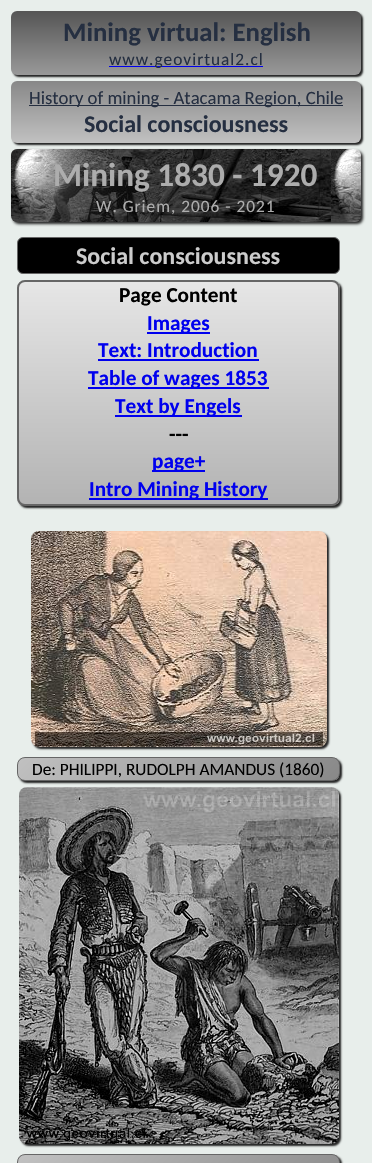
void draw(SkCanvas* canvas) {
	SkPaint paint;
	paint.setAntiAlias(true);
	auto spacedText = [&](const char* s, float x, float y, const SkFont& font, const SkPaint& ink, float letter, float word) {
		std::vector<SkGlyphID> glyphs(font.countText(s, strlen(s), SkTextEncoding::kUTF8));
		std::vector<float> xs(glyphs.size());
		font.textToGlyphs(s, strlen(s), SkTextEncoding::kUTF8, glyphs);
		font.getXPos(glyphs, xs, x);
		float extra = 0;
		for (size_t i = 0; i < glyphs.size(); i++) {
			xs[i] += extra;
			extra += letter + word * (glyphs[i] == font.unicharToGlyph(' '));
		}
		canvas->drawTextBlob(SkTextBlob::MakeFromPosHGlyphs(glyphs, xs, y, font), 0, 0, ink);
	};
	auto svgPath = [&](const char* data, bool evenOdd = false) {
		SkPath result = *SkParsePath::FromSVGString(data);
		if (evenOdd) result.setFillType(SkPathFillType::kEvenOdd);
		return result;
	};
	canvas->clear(0xffe8eeeb);
	paint.setColor(0xff222222);
	paint.setMaskFilter(SkMaskFilter::MakeBlur(kNormal_SkBlurStyle, 1));
	canvas->drawRoundRect(SkRect::MakeXYWH(13, 13, 350, 64), 6, 6, paint);
	paint.setMaskFilter(nullptr);
	{
		const SkColor colors[] = {0xff555555, 0xff999999};
		const float stops[] = {0, 1};
		const SkPoint ends[] = {{186, 11}, {186, 75}};
		paint.setShader(SkGradientShader::MakeLinear(ends, colors, stops, 2, SkTileMode::kClamp));
		paint.setAlpha(255);
	}
	canvas->drawRoundRect(SkRect::MakeXYWH(11, 11, 350, 64), 6, 6, paint);
	SkFont f1(fontMgr->matchFamilyStyle("Carlito", SkFontStyle::Bold()), 26.75);
	f1.setSubpixel(true);
	paint.setShader(nullptr);
	paint.setColor(0xff252f41);
	canvas->drawString("Mining virtual: English", 63, 41, f1, paint);
	paint.setColor(0xff0000ee);
	canvas->drawRect(SkRect::MakeXYWH(109, 66, 154, 1), paint);
	SkFont f2(fontMgr->matchFamilyStyle("Carlito", SkFontStyle::Normal()), 17.3);
	f2.setSubpixel(true);
	paint.setColor(0xff252f41);
	spacedText("www.geovirtual2.cl", 109, 65, f2, paint, 1, 0);
	paint.setColor(0xff222222);
	paint.setMaskFilter(SkMaskFilter::MakeBlur(kNormal_SkBlurStyle, 1));
	canvas->drawRoundRect(SkRect::MakeXYWH(13, 83, 350, 62), 6, 6, paint);
	paint.setMaskFilter(nullptr);
	{
		const SkColor colors[] = {0xff888888, 0xffc1c1c1};
		const float stops[] = {0, 1};
		const SkPoint ends[] = {{186, 81}, {186, 143}};
		paint.setShader(SkGradientShader::MakeLinear(ends, colors, stops, 2, SkTileMode::kClamp));
		paint.setAlpha(255);
	}
	canvas->drawRoundRect(SkRect::MakeXYWH(11, 81, 350, 62), 6, 6, paint);
	paint.setShader(nullptr);
	paint.setColor(0xff252f41);
	canvas->drawRect(SkRect::MakeXYWH(29, 105, 314, 1), paint);
	SkFont f3(fontMgr->matchFamilyStyle("Carlito", SkFontStyle::Normal()), 18.7);
	f3.setSubpixel(true);
	canvas->drawString("History of mining - Atacama Region, Chile", 29, 104, f3, paint);
	SkFont f4(fontMgr->matchFamilyStyle("Carlito", SkFontStyle::Bold()), 24);
	f4.setSubpixel(true);
	canvas->drawString("Social consciousness", 84, 132, f4, paint);
	paint.setColor(0xff222222);
	paint.setMaskFilter(SkMaskFilter::MakeBlur(kNormal_SkBlurStyle, 1.5));
	canvas->drawRoundRect(SkRect::MakeXYWH(13, 151, 350, 73), 6, 6, paint);
	paint.setMaskFilter(nullptr);
	canvas->drawImageRect(SkImages::DeferredFromEncodedData(SkData::MakeFromFileName("img1.png")), SkRect::MakeXYWH(11, 149, 350, 73), SkSamplingOptions());
	SkFont f5(fontMgr->matchFamilyStyle("Carlito", SkFontStyle::Bold()), 33.25);
	f5.setSubpixel(true);
	paint.setColor(0xffadadad);
	canvas->drawString("Mining 1830 - 1920", 53, 186, f5, paint);
	spacedText("W. Griem, 2006 - 2021", 96, 212, f2, paint, 1, 0);
	paint.setColor(0xff000000);
	canvas->drawRoundRect(SkRect::MakeXYWH(17.5, 237.5, 322, 36), 5.5, 5.5, paint);
	paint.setStroke(true);
	paint.setStrokeWidth(1);
	paint.setColor(0xff666666);
	canvas->drawRoundRect(SkRect::MakeXYWH(17.5, 237.5, 322, 36), 5.5, 5.5, paint);
	paint.setStroke(false);
	paint.setColor(0xffcccccc);
	canvas->drawString("Social consciousness", 76, 264, f4, paint);
	paint.setColor(0xff222222);
	paint.setMaskFilter(SkMaskFilter::MakeBlur(kNormal_SkBlurStyle, 1));
	canvas->drawRoundRect(SkRect::MakeXYWH(19, 282, 323, 226), 8, 8, paint);
	paint.setMaskFilter(nullptr);
	canvas->save();
	canvas->clipPath(svgPath("M25 280H332C336.5 280 340 283.5 340 288V498C340 502.5 336.5 506 332 506H25C20.5 506 17 502.5 17 498V288C17 283.5 20.5 280 25 280Z"), true);
	{
		const SkColor colors[] = {0xffb3b3b3, 0xffe6e6e6};
		const float stops[] = {0, 1};
		const SkPoint ends[] = {{179, 504}, {179, 282}};
		paint.setShader(SkGradientShader::MakeLinear(ends, colors, stops, 2, SkTileMode::kClamp));
		paint.setAlpha(255);
	}
	canvas->drawRect(SkRect::MakeXYWH(17, 282, 323, 222), paint);
	canvas->restore();
	paint.setStroke(true);
	paint.setStrokeWidth(2);
	paint.setShader(nullptr);
	paint.setColor(0xff666666);
	canvas->drawRoundRect(SkRect::MakeXYWH(18, 281, 321, 224), 7, 7, paint);
	SkFont f6(fontMgr->matchFamilyStyle("Carlito", SkFontStyle::Bold()), 21.25);
	f6.setSubpixel(true);
	paint.setStroke(false);
	paint.setColor(0xff000000);
	canvas->drawString("Page Content", 119, 302, f6, paint);
	paint.setColor(0xff0000ee);
	canvas->drawRect(SkRect::MakeXYWH(147, 332, 63, 2), paint);
	canvas->drawString("Images", 147, 330, f6, paint);
	canvas->drawString("Text: Introduction", 98, 357, f6, paint);
	canvas->drawRect(SkRect::MakeXYWH(98, 359, 161, 2), paint);
	canvas->drawRect(SkRect::MakeXYWH(88, 387, 181, 2), paint);
	canvas->drawString("Table of wages 1853", 88, 385, f6, paint);
	canvas->drawRect(SkRect::MakeXYWH(115, 415, 127, 2), paint);
	canvas->drawString("Text by Engels", 115, 413, f6, paint);
	paint.setColor(0xff000000);
	canvas->drawString("---", 169, 441, f6, paint);
	paint.setColor(0xff0000ee);
	canvas->drawRect(SkRect::MakeXYWH(152, 470, 53, 2), paint);
	canvas->drawString("page+", 152, 468, f6, paint);
	canvas->drawRect(SkRect::MakeXYWH(89, 498, 179, 2), paint);
	canvas->drawString("Intro Mining History", 89, 496, f6, paint);
	paint.setColor(0xff222222);
	paint.setMaskFilter(SkMaskFilter::MakeBlur(kNormal_SkBlurStyle, 1));
	canvas->drawRoundRect(SkRect::MakeXYWH(33, 533, 296, 216), 8, 8, paint);
	paint.setMaskFilter(nullptr);
	canvas->drawImageRect(SkImages::DeferredFromEncodedData(SkData::MakeFromFileName("img2.png")), SkRect::MakeXYWH(31, 531, 296, 216), SkSamplingOptions());
	paint.setMaskFilter(SkMaskFilter::MakeBlur(kNormal_SkBlurStyle, 1));
	canvas->drawRoundRect(SkRect::MakeXYWH(19, 759, 323, 24), 8, 8, paint);
	paint.setMaskFilter(nullptr);
	canvas->save();
	canvas->clipPath(svgPath("M25 757H332C336.5 757 340 760.5 340 765V773C340 777.5 336.5 781 332 781H25C20.5 781 17 777.5 17 773V765C17 760.5 20.5 757 25 757Z"), true);
	{
		const SkColor colors[] = {0xff888888, 0xffc1c1c1};
		const float stops[] = {0, 1};
		const SkPoint ends[] = {{264, 855}, {93, 683}};
		paint.setShader(SkGradientShader::MakeLinear(ends, colors, stops, 2, SkTileMode::kClamp));
		paint.setAlpha(255);
	}
	canvas->drawRect(SkRect::MakeXYWH(18, 758, 321, 22), paint);
	canvas->restore();
	paint.setStroke(true);
	paint.setStrokeWidth(1);
	paint.setShader(nullptr);
	paint.setColor(0xff666666);
	canvas->drawRoundRect(SkRect::MakeXYWH(17.5, 757.5, 322, 23), 7.5, 7.5, paint);
	paint.setStroke(false);
	paint.setColor(0xff000000);
	canvas->drawString("De: PHILIPPI, RUDOLPH AMANDUS (1860)", 32, 775, f2, paint);
	paint.setColor(0xff222222);
	paint.setMaskFilter(SkMaskFilter::MakeBlur(kNormal_SkBlurStyle, 1));
	canvas->drawRoundRect(SkRect::MakeXYWH(21, 789, 320, 357), 8, 8, paint);
	paint.setMaskFilter(nullptr);
	canvas->drawImageRect(SkImages::DeferredFromEncodedData(SkData::MakeFromFileName("img3.png")), SkRect::MakeXYWH(19, 787, 320, 357), SkSamplingOptions());
	paint.setMaskFilter(SkMaskFilter::MakeBlur(kNormal_SkBlurStyle, 1));
	canvas->drawRoundRect(SkRect::MakeXYWH(19, 1156, 323, 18), 8, 8, paint);
	paint.setMaskFilter(nullptr);
	canvas->save();
	canvas->clipPath(svgPath("M25 1154H332C336.5 1154 340 1157.5 340 1162V1214C340 1218.5 336.5 1222 332 1222H25C20.5 1222 17 1218.5 17 1214V1162C17 1157.5 20.5 1154 25 1154Z"), true);
	{
		const SkColor colors[] = {0xff888888, 0xffc1c1c1};
		const float stops[] = {0, 1};
		const SkPoint ends[] = {{275, 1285}, {82, 1091}};
		paint.setShader(SkGradientShader::MakeLinear(ends, colors, stops, 2, SkTileMode::kClamp));
		paint.setAlpha(255);
	}
	canvas->drawRect(SkRect::MakeXYWH(18, 1155, 321, 8), paint);
	canvas->restore();
	paint.setStroke(true);
	paint.setShader(nullptr);
	paint.setColor(0xff666666);
	canvas->drawRoundRect(SkRect::MakeXYWH(17.5, 1154.5, 322, 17), 7.5, 7.5, paint);
}
